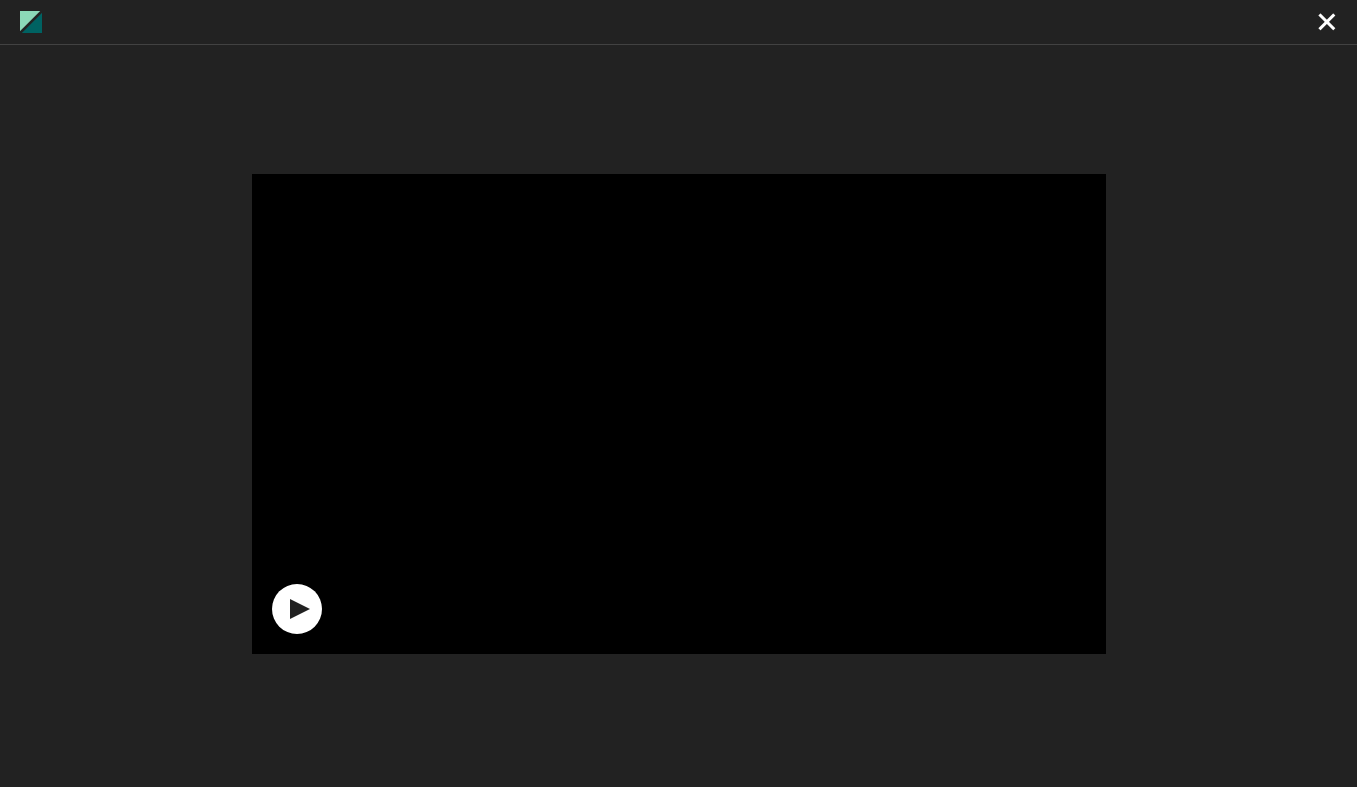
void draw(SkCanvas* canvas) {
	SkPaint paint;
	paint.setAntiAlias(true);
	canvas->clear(0xff222222);
	paint.setColor(0xff424242);
	canvas->drawRect(SkRect::MakeXYWH(0, 44, 1357, 1), paint);
	canvas->drawImageRect(SkImages::DeferredFromEncodedData(SkData::MakeFromFileName("img1.png")), SkRect::MakeXYWH(20, 11, 22, 22), SkSamplingOptions());
	canvas->drawImageRect(SkImages::DeferredFromEncodedData(SkData::MakeFromFileName("img2.png")), SkRect::MakeXYWH(1318, 13, 18, 18), SkSamplingOptions());
	paint.setColor(0xff000000);
	canvas->drawRect(SkRect::MakeXYWH(252, 174, 854, 480), paint);
	canvas->drawImageRect(SkImages::DeferredFromEncodedData(SkData::MakeFromFileName("img3.png")), SkRect::MakeXYWH(272, 584, 50, 50), SkSamplingOptions());
}
